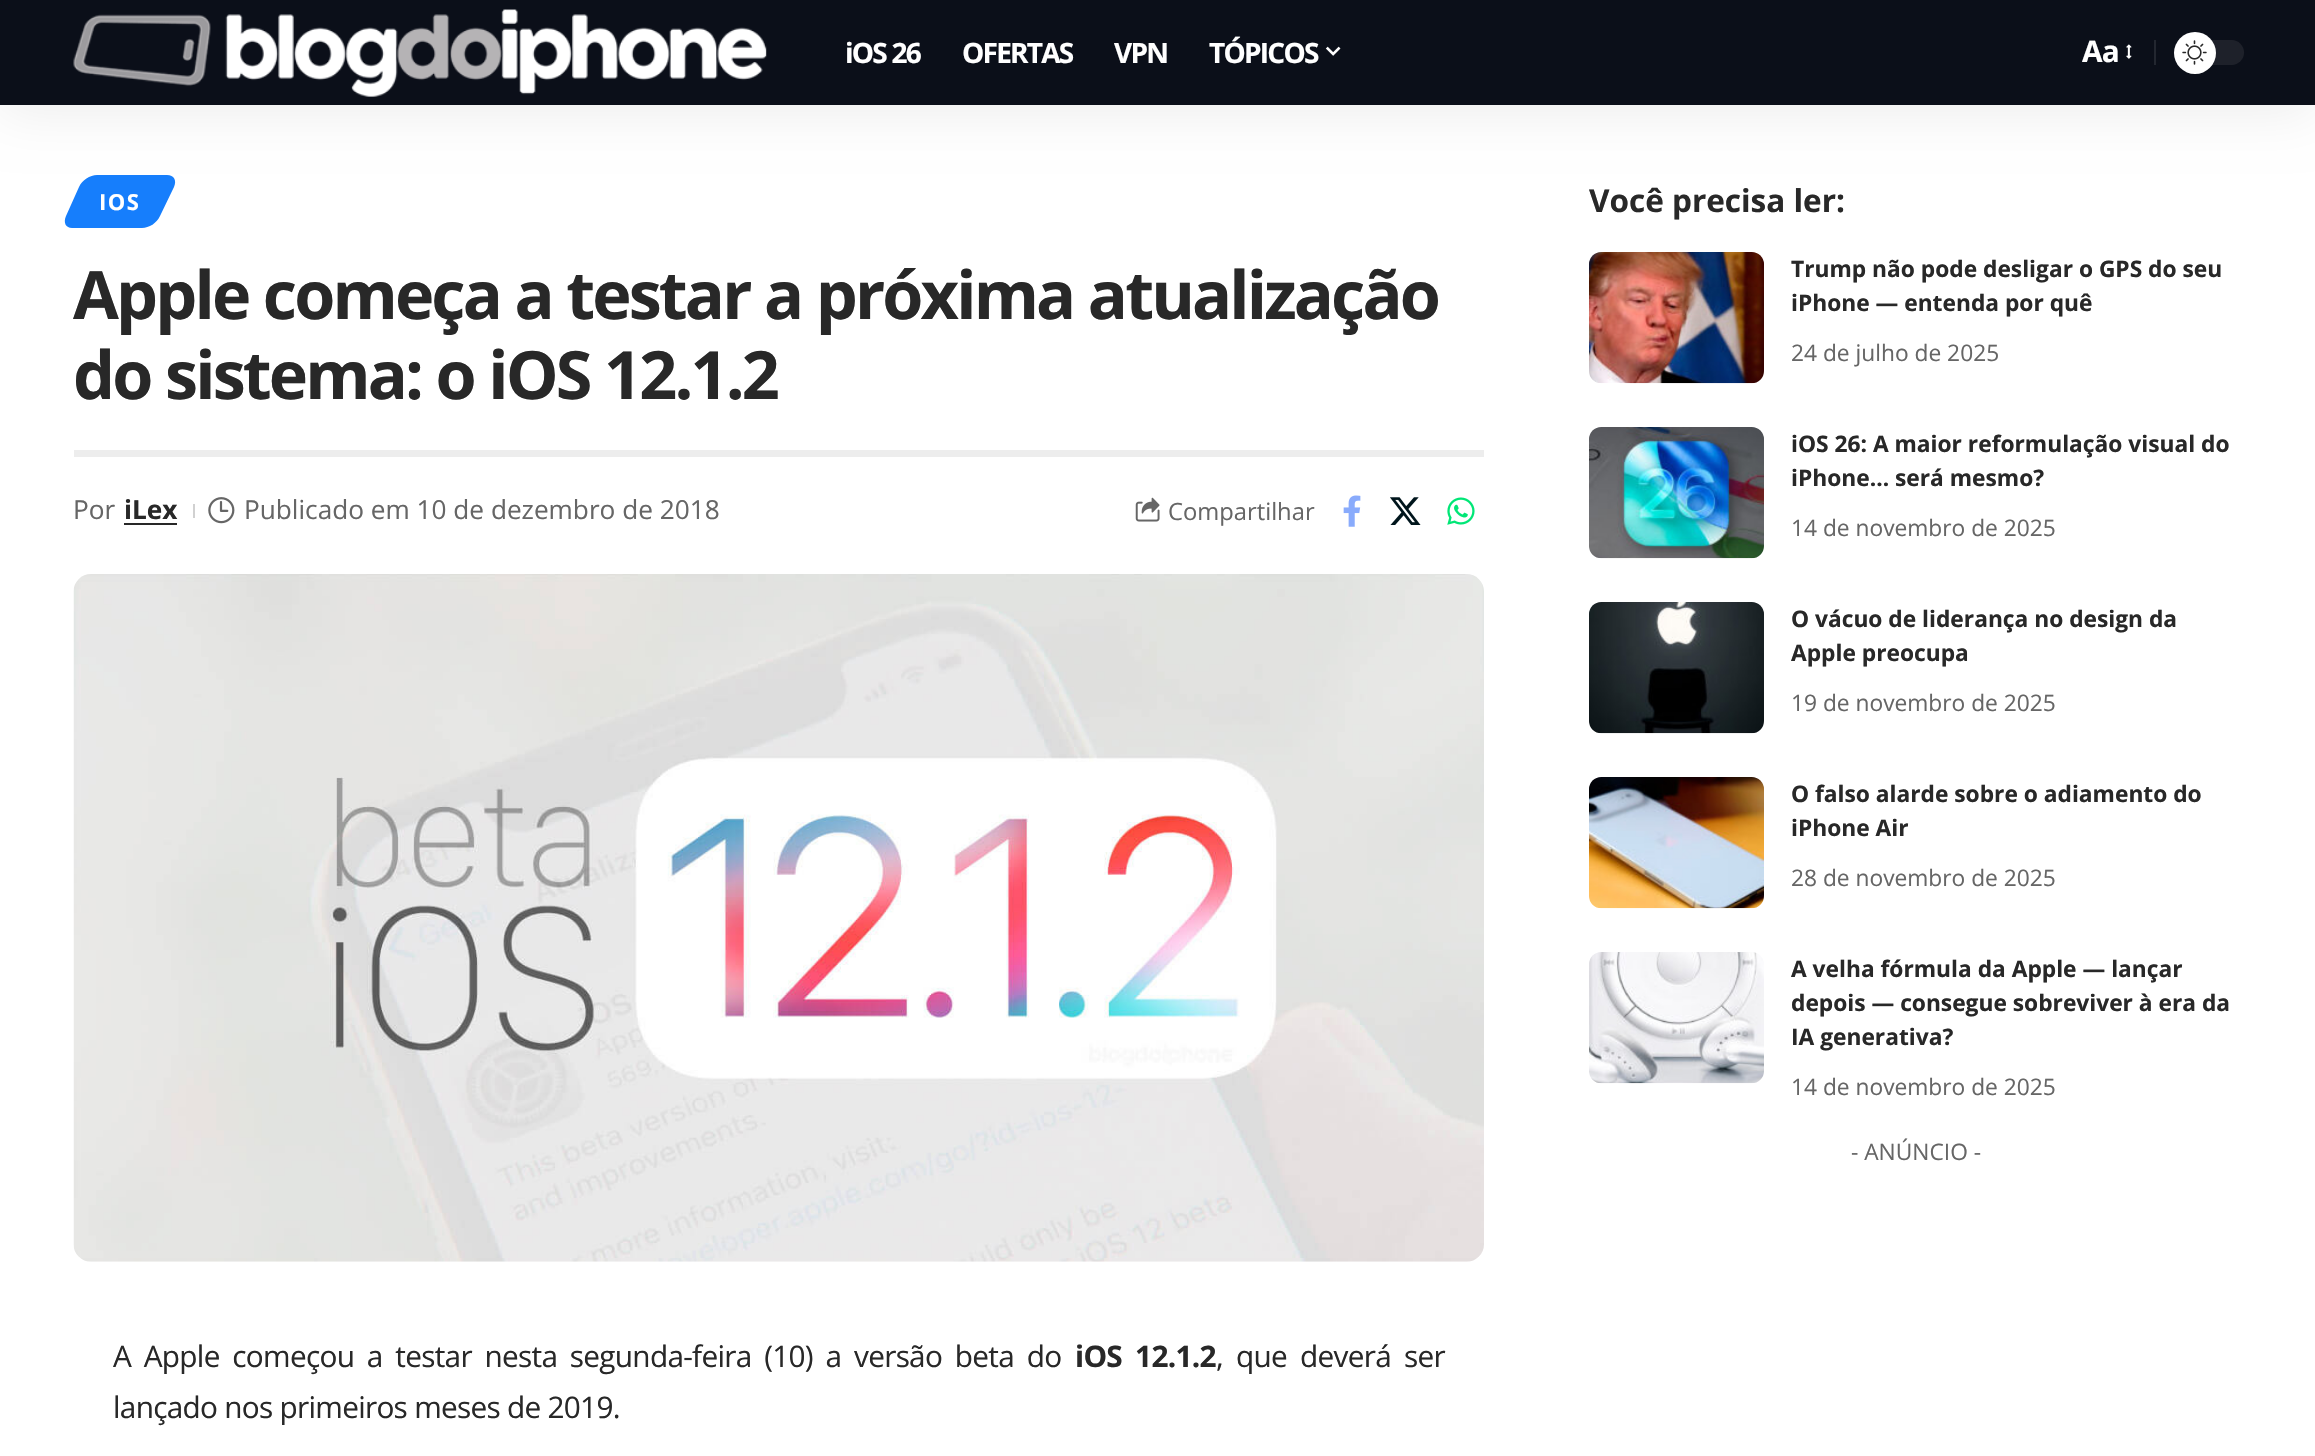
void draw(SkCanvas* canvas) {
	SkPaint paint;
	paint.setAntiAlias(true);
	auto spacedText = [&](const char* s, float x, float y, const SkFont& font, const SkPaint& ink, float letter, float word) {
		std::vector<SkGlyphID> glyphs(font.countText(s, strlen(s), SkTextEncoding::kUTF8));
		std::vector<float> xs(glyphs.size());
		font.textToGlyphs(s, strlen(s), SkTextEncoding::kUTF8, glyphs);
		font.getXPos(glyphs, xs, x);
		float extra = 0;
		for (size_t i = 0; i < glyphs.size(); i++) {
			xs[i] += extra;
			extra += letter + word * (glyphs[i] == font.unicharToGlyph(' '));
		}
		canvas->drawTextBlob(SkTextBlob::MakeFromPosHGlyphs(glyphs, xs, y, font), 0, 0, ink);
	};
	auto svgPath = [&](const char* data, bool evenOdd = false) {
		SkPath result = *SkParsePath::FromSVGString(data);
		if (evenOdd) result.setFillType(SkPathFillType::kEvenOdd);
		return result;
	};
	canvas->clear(0xffffffff);
	paint.setColor(0xff167efc);
	canvas->drawPath(svgPath("M97 175H167C174 175 177 180 174 187L160 216C157 223 149 228 142 228H72C66 228 63 223 66 216L79 187C82 180 90 175 97 175Z"), paint);
	paint.setColor(0x12000000);
	paint.setMaskFilter(SkMaskFilter::MakeBlur(kNormal_SkBlurStyle, 26));
	canvas->drawRect(SkRect::MakeXYWH(0, 7, 2315, 105), paint);
	paint.setMaskFilter(nullptr);
	paint.setColor(0xff0b0f19);
	canvas->drawRect(SkRect::MakeXYWH(0, 0, 2315, 105), paint);
	canvas->drawImageRect(SkImages::DeferredFromEncodedData(SkData::MakeFromFileName("img1.png")), SkRect::MakeXYWH(73, 9, 694, 88), SkSamplingOptions());
	SkFont f1(fontMgr->matchFamilyStyle("Open Sans", SkFontStyle::Bold()), 28);
	f1.setSubpixel(true);
	paint.setColor(0xffffffff);
	spacedText("iOS 26", 845, 63, f1, paint, -1.75, 0);
	spacedText("OFERTAS", 962, 63, f1, paint, -1.75, 0);
	spacedText("VPN", 1114, 63, f1, paint, -1.75, 0);
	spacedText("TÓPICOS", 1209, 63, f1, paint, -1.75, 0);
	canvas->drawImageRect(SkImages::DeferredFromEncodedData(SkData::MakeFromFileName("img2.png")), SkRect::MakeXYWH(1325, 46, 16, 10), SkSamplingOptions());
	SkFont f2(fontMgr->matchFamilyStyle("Open Sans", SkFontStyle::Bold()), 29.75);
	f2.setSubpixel(true);
	spacedText("Aa", 2082, 62, f2, paint, -0.7, 0);
	canvas->drawImageRect(SkImages::DeferredFromEncodedData(SkData::MakeFromFileName("img3.png")), SkRect::MakeXYWH(2126, 44, 6, 15), SkSamplingOptions());
	paint.setColor(0xff232730);
	canvas->drawRect(SkRect::MakeXYWH(2154, 40, 2, 25), paint);
	paint.setColor(0xff1e212a);
	canvas->drawRoundRect(SkRect::MakeXYWH(2174, 40, 70, 25), 12.5, 12.5, paint);
	paint.setColor(0xffffffff);
	canvas->drawCircle(2195, 53, 21, paint);
	canvas->drawImageRect(SkImages::DeferredFromEncodedData(SkData::MakeFromFileName("img4.png")), SkRect::MakeXYWH(2182, 40, 25, 25), SkSamplingOptions());
	SkFont f3(fontMgr->matchFamilyStyle("Open Sans", SkFontStyle::Bold()), 22);
	f3.setSubpixel(true);
	spacedText("IOS", 99, 210, f3, paint, 1.5, 0);
	SkFont f4(fontMgr->matchFamilyStyle("Open Sans", SkFontStyle::Bold()), 66.5);
	f4.setSubpixel(true);
	paint.setColor(0xff282828);
	spacedText("Apple começa a testar a próxima atualização", 73, 319, f4, paint, -2.85, 0);
	spacedText("do sistema: o iOS 12.1.2", 73, 399, f4, paint, -2.85, 0);
	paint.setColor(0xffededed);
	canvas->drawRect(SkRect::MakeXYWH(74, 450, 1410, 7), paint);
	SkFont f5(fontMgr->matchFamilyStyle("Open Sans", SkFontStyle::Normal()), 26.2);
	f5.setSubpixel(true);
	paint.setColor(0xff666666);
	canvas->drawString("Por", 73, 519, f5, paint);
	SkFont f6(fontMgr->matchFamilyStyle("Open Sans", SkFontStyle::Bold()), 26.2);
	f6.setSubpixel(true);
	paint.setColor(0xff282828);
	canvas->drawString("iLex", 124, 519, f6, paint);
	canvas->drawRect(SkRect::MakeXYWH(124, 523, 53, 2), paint);
	paint.setColor(0xffd1d1d1);
	canvas->drawRect(SkRect::MakeXYWH(193, 504, 2, 14), paint);
	canvas->drawImageRect(SkImages::DeferredFromEncodedData(SkData::MakeFromFileName("img5.png")), SkRect::MakeXYWH(208, 497, 27, 27), SkSamplingOptions());
	paint.setColor(0xff666666);
	canvas->drawString("Publicado em 10 de dezembro de 2018", 244, 519, f5, paint);
	canvas->drawImageRect(SkImages::DeferredFromEncodedData(SkData::MakeFromFileName("img6.png")), SkRect::MakeXYWH(1135, 497, 25, 25), SkSamplingOptions());
	SkFont f7(fontMgr->matchFamilyStyle("Open Sans", SkFontStyle::Normal()), 23.75);
	f7.setSubpixel(true);
	canvas->drawString("Compartilhar", 1168, 520, f7, paint);
	canvas->drawImageRect(SkImages::DeferredFromEncodedData(SkData::MakeFromFileName("img7.png")), SkRect::MakeXYWH(1343, 495, 18, 32), SkSamplingOptions());
	canvas->drawImageRect(SkImages::DeferredFromEncodedData(SkData::MakeFromFileName("img8.png")), SkRect::MakeXYWH(1390, 497, 31, 28), SkSamplingOptions());
	canvas->drawImageRect(SkImages::DeferredFromEncodedData(SkData::MakeFromFileName("img9.png")), SkRect::MakeXYWH(1447, 497, 28, 28), SkSamplingOptions());
	canvas->drawImageRect(SkImages::DeferredFromEncodedData(SkData::MakeFromFileName("img10.png")), SkRect::MakeXYWH(73, 574, 1411, 688), SkSamplingOptions());
	SkFont f8(fontMgr->matchFamilyStyle("Open Sans", SkFontStyle::Normal()), 29.75);
	f8.setSubpixel(true);
	paint.setColor(0xff282828);
	spacedText("A Apple começou a testar nesta segunda-feira (10) a versão beta do", 113, 1367, f8, paint, -0.7, 5.6);
	spacedText("iOS 12.1.2", 1075, 1367, f2, paint, -0.7, 6);
	spacedText(", que deverá ser", 1216, 1367, f8, paint, -0.7, 6);
	spacedText("lançado nos primeiros meses de 2019.", 113, 1418, f8, paint, -0.7, 0);
	SkFont f9(fontMgr->matchFamilyStyle("Open Sans", SkFontStyle::Bold()), 31.5);
	f9.setSubpixel(true);
	canvas->drawString("Você precisa ler:", 1589, 212, f9, paint);
	canvas->drawImageRect(SkImages::DeferredFromEncodedData(SkData::MakeFromFileName("img11.png")), SkRect::MakeXYWH(1589, 252, 175, 132), SkSamplingOptions());
	SkFont f10(fontMgr->matchFamilyStyle("Open Sans", SkFontStyle::Bold()), 22.75);
	f10.setSubpixel(true);
	canvas->drawString("Trump não pode desligar o GPS do seu", 1791, 277, f10, paint);
	canvas->drawString("iPhone — entenda por quê", 1791, 311, f10, paint);
	SkFont f11(fontMgr->matchFamilyStyle("Open Sans", SkFontStyle::Normal()), 22.75);
	f11.setSubpixel(true);
	paint.setColor(0xff666666);
	canvas->drawString("24 de julho de 2025", 1791, 361, f11, paint);
	canvas->drawImageRect(SkImages::DeferredFromEncodedData(SkData::MakeFromFileName("img12.png")), SkRect::MakeXYWH(1589, 427, 175, 132), SkSamplingOptions());
	paint.setColor(0xff282828);
	canvas->drawString("iOS 26: A maior reformulação visual do", 1791, 452, f10, paint);
	canvas->drawString("iPhone… será mesmo?", 1791, 486, f10, paint);
	paint.setColor(0xff666666);
	canvas->drawString("14 de novembro de 2025", 1791, 536, f11, paint);
	canvas->drawImageRect(SkImages::DeferredFromEncodedData(SkData::MakeFromFileName("img13.png")), SkRect::MakeXYWH(1589, 602, 175, 132), SkSamplingOptions());
	paint.setColor(0xff282828);
	canvas->drawString("O vácuo de liderança no design da", 1791, 627, f10, paint);
	canvas->drawString("Apple preocupa", 1791, 661, f10, paint);
	paint.setColor(0xff666666);
	canvas->drawString("19 de novembro de 2025", 1791, 711, f11, paint);
	canvas->drawImageRect(SkImages::DeferredFromEncodedData(SkData::MakeFromFileName("img14.png")), SkRect::MakeXYWH(1589, 777, 175, 132), SkSamplingOptions());
	paint.setColor(0xff282828);
	canvas->drawString("O falso alarde sobre o adiamento do", 1791, 802, f10, paint);
	canvas->drawString("iPhone Air", 1791, 836, f10, paint);
	paint.setColor(0xff666666);
	canvas->drawString("28 de novembro de 2025", 1791, 886, f11, paint);
	canvas->drawImageRect(SkImages::DeferredFromEncodedData(SkData::MakeFromFileName("img15.png")), SkRect::MakeXYWH(1589, 952, 175, 132), SkSamplingOptions());
	paint.setColor(0xff282828);
	canvas->drawString("A velha fórmula da Apple — lançar", 1791, 977, f10, paint);
	canvas->drawString("depois — consegue sobreviver à era da", 1791, 1011, f10, paint);
	canvas->drawString("IA generativa?", 1791, 1045, f10, paint);
	paint.setColor(0xff666666);
	canvas->drawString("14 de novembro de 2025", 1791, 1095, f11, paint);
	canvas->drawString("- ANÚNCIO -", 1851, 1160, f11, paint);
}
